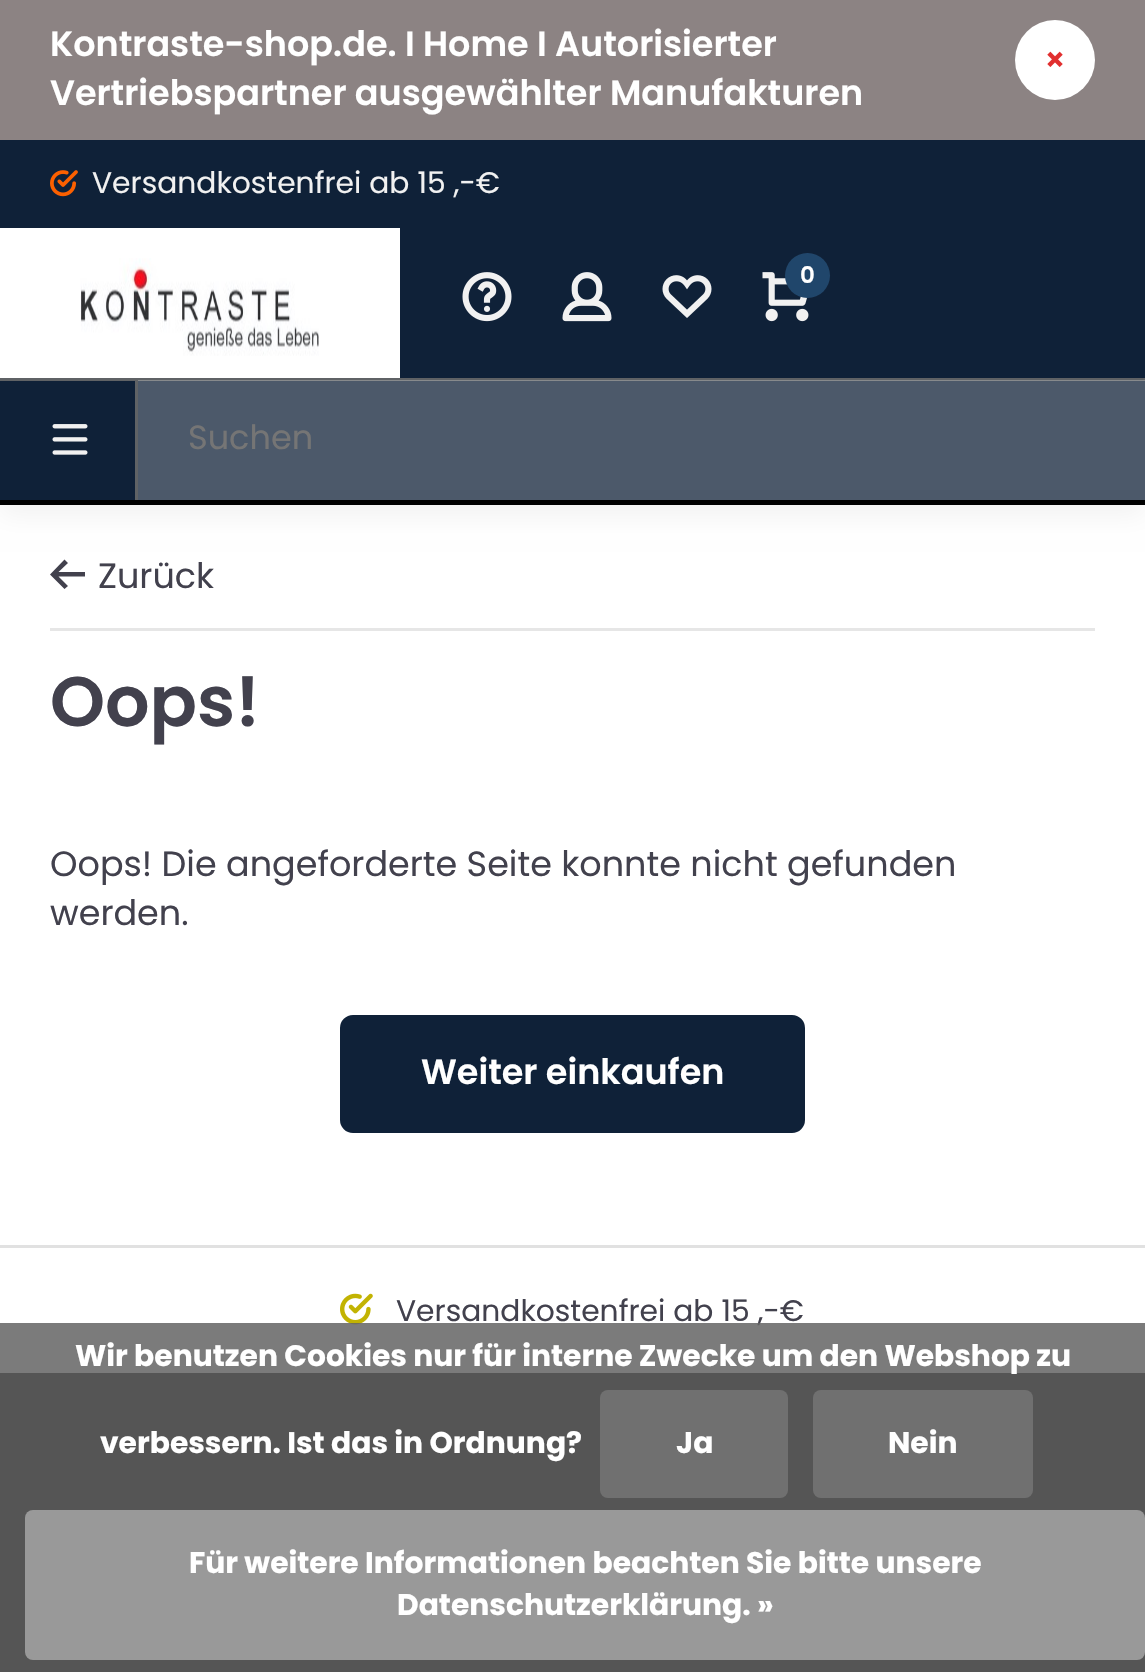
void draw(SkCanvas* canvas) {
	SkPaint paint;
	paint.setAntiAlias(true);
	auto svgPath = [&](const char* data, bool evenOdd = false) {
		SkPath result = *SkParsePath::FromSVGString(data);
		if (evenOdd) result.setFillType(SkPathFillType::kEvenOdd);
		return result;
	};
	canvas->clear(0xffffffff);
	paint.setColor(0xff8c8383);
	canvas->drawRect(SkRect::MakeXYWH(0, 0, 1145, 140), paint);
	SkFont f1(fontMgr->matchFamilyStyle("Poppins", SkFontStyle(600, SkFontStyle::kNormal_Width, SkFontStyle::kUpright_Slant)), 35);
	f1.setSubpixel(true);
	paint.setColor(0xffffffff);
	canvas->drawString("Kontraste-shop.de. I Home I Autorisierter", 50, 56, f1, paint);
	canvas->drawString("Vertriebspartner ausgewählter Manufakturen", 50, 105, f1, paint);
	canvas->drawCircle(1055, 60, 40, paint);
	canvas->drawImageRect(SkImages::DeferredFromEncodedData(SkData::MakeFromFileName("img1.png")), SkRect::MakeXYWH(1047, 51, 16, 16), SkSamplingOptions());
	paint.setColor(0x0d000000);
	paint.setMaskFilter(SkMaskFilter::MakeBlur(kNormal_SkBlurStyle, 12.5));
	canvas->drawRect(SkRect::MakeXYWH(0, 240, 1145, 275), paint);
	paint.setMaskFilter(nullptr);
	paint.setColor(0xff0f2138);
	canvas->drawRect(SkRect::MakeXYWH(0, 140, 1145, 360), paint);
	canvas->drawImageRect(SkImages::DeferredFromEncodedData(SkData::MakeFromFileName("img2.png")), SkRect::MakeXYWH(50, 170, 28, 27), SkSamplingOptions());
	SkFont f2(fontMgr->matchFamilyStyle("Poppins", SkFontStyle::Normal()), 29.75);
	f2.setSubpixel(true);
	paint.setColor(0xfff1f1f1);
	canvas->drawString("Versandkostenfrei ab 15 ,-€", 92, 193, f2, paint);
	paint.setColor(0xffffffff);
	canvas->drawRect(SkRect::MakeXYWH(0, 228, 400, 150), paint);
	canvas->drawImageRect(SkImages::DeferredFromEncodedData(SkData::MakeFromFileName("img3.png")), SkRect::MakeXYWH(80, 258, 239, 98), SkSamplingOptions());
	canvas->drawImageRect(SkImages::DeferredFromEncodedData(SkData::MakeFromFileName("img4.png")), SkRect::MakeXYWH(462, 272, 50, 50), SkSamplingOptions());
	canvas->drawImageRect(SkImages::DeferredFromEncodedData(SkData::MakeFromFileName("img5.png")), SkRect::MakeXYWH(562, 272, 50, 50), SkSamplingOptions());
	canvas->drawImageRect(SkImages::DeferredFromEncodedData(SkData::MakeFromFileName("img6.png")), SkRect::MakeXYWH(662, 275, 50, 43), SkSamplingOptions());
	canvas->drawImageRect(SkImages::DeferredFromEncodedData(SkData::MakeFromFileName("img7.png")), SkRect::MakeXYWH(762, 272, 47, 50), SkSamplingOptions());
	paint.setColor(0xff20466b);
	canvas->drawCircle(807.5, 275.5, 22.5, paint);
	SkFont f3(fontMgr->matchFamilyStyle("Poppins", SkFontStyle(600, SkFontStyle::kNormal_Width, SkFontStyle::kUpright_Slant)), 23);
	f3.setSubpixel(true);
	paint.setColor(0xffffffff);
	canvas->drawString("0", 800, 283, f3, paint);
	paint.setColor(0xff5f6265);
	canvas->drawRect(SkRect::MakeXYWH(0, 378, 1145, 3), paint);
	canvas->drawImageRect(SkImages::DeferredFromEncodedData(SkData::MakeFromFileName("img8.png")), SkRect::MakeXYWH(52, 424, 36, 31), SkSamplingOptions());
	canvas->drawRect(SkRect::MakeXYWH(135, 380, 3, 120), paint);
	paint.setColor(0x40ffffff);
	canvas->drawRect(SkRect::MakeXYWH(138, 380, 1007, 120), paint);
	paint.setColor(0xff000000);
	canvas->drawRect(SkRect::MakeXYWH(0, 500, 1145, 5), paint);
	SkFont f4(fontMgr->matchFamilyStyle("Poppins", SkFontStyle::Normal()), 33.5);
	f4.setSubpixel(true);
	paint.setColor(0xff757575);
	canvas->drawString("Suchen", 188, 449, f4, paint);
	paint.setColor(0xffe6e6e6);
	canvas->drawRect(SkRect::MakeXYWH(50, 628, 1045, 3), paint);
	paint.setColor(0xff42414d);
	canvas->drawPath(svgPath("M68 563L64.5 559.5L50 574.5L64.5 589L68 586L58.5 576.5H85V572H58.5Z"), paint);
	SkFont f5(fontMgr->matchFamilyStyle("Poppins", SkFontStyle::Normal()), 35);
	f5.setSubpixel(true);
	canvas->drawString("Zurück", 98, 588, f5, paint);
	SkFont f6(fontMgr->matchFamilyStyle("Poppins", SkFontStyle(600, SkFontStyle::kNormal_Width, SkFontStyle::kUpright_Slant)), 70);
	f6.setSubpixel(true);
	canvas->drawString("Oops!", 50, 726, f6, paint);
	canvas->drawString("Oops! Die angeforderte Seite konnte nicht gefunden", 50, 876, f5, paint);
	canvas->drawString("werden.", 50, 925, f5, paint);
	paint.setColor(0xff0f2138);
	canvas->drawRoundRect(SkRect::MakeXYWH(342.5, 1017.5, 460, 113), 10.5, 10.5, paint);
	paint.setStroke(true);
	paint.setStrokeWidth(5);
	canvas->drawRoundRect(SkRect::MakeXYWH(342.5, 1017.5, 460, 113), 10.5, 10.5, paint);
	paint.setStroke(false);
	paint.setColor(0xffffffff);
	canvas->drawString("Weiter einkaufen", 421, 1084, f1, paint);
	paint.setColor(0xffe1e1e1);
	canvas->drawRect(SkRect::MakeXYWH(0, 1245, 1145, 3), paint);
	canvas->drawImageRect(SkImages::DeferredFromEncodedData(SkData::MakeFromFileName("img9.png")), SkRect::MakeXYWH(340, 1293, 33, 32), SkSamplingOptions());
	paint.setColor(0xff42414d);
	canvas->drawString("Versandkostenfrei ab 15 ,-€", 396, 1321, f2, paint);
	paint.setColor(0xff000000);
	canvas->drawRect(SkRect::MakeXYWH(0, 1373, 1145, 299), paint);
	paint.setColor(0xd9646464);
	canvas->drawRect(SkRect::MakeXYWH(0, 1323, 1145, 349), paint);
	SkFont f7(fontMgr->matchFamilyStyle("Poppins", SkFontStyle::Bold()), 29.75);
	f7.setSubpixel(true);
	paint.setColor(0xffffffff);
	canvas->drawString("Wir benutzen Cookies nur für interne Zwecke um den Webshop zu", 75, 1366, f7, paint);
	canvas->drawString("verbessern. Ist das in Ordnung?", 100, 1453, f7, paint);
	paint.setColor(0xff707070);
	canvas->drawRoundRect(SkRect::MakeXYWH(600, 1390, 188, 108), 8, 8, paint);
	paint.setColor(0xffffffff);
	canvas->drawString("Ja", 676, 1453, f7, paint);
	paint.setColor(0xff707070);
	canvas->drawRoundRect(SkRect::MakeXYWH(813, 1390, 220, 108), 8, 8, paint);
	paint.setColor(0xffffffff);
	canvas->drawString("Nein", 888, 1453, f7, paint);
	paint.setColor(0xff999999);
	canvas->drawRoundRect(SkRect::MakeXYWH(25, 1510, 1120, 150), 8, 8, paint);
	paint.setColor(0xffffffff);
	canvas->drawString("Für weitere Informationen beachten Sie bitte unsere", 189, 1573, f7, paint);
	canvas->drawString("Datenschutzerklärung. »", 397, 1615, f7, paint);
}
